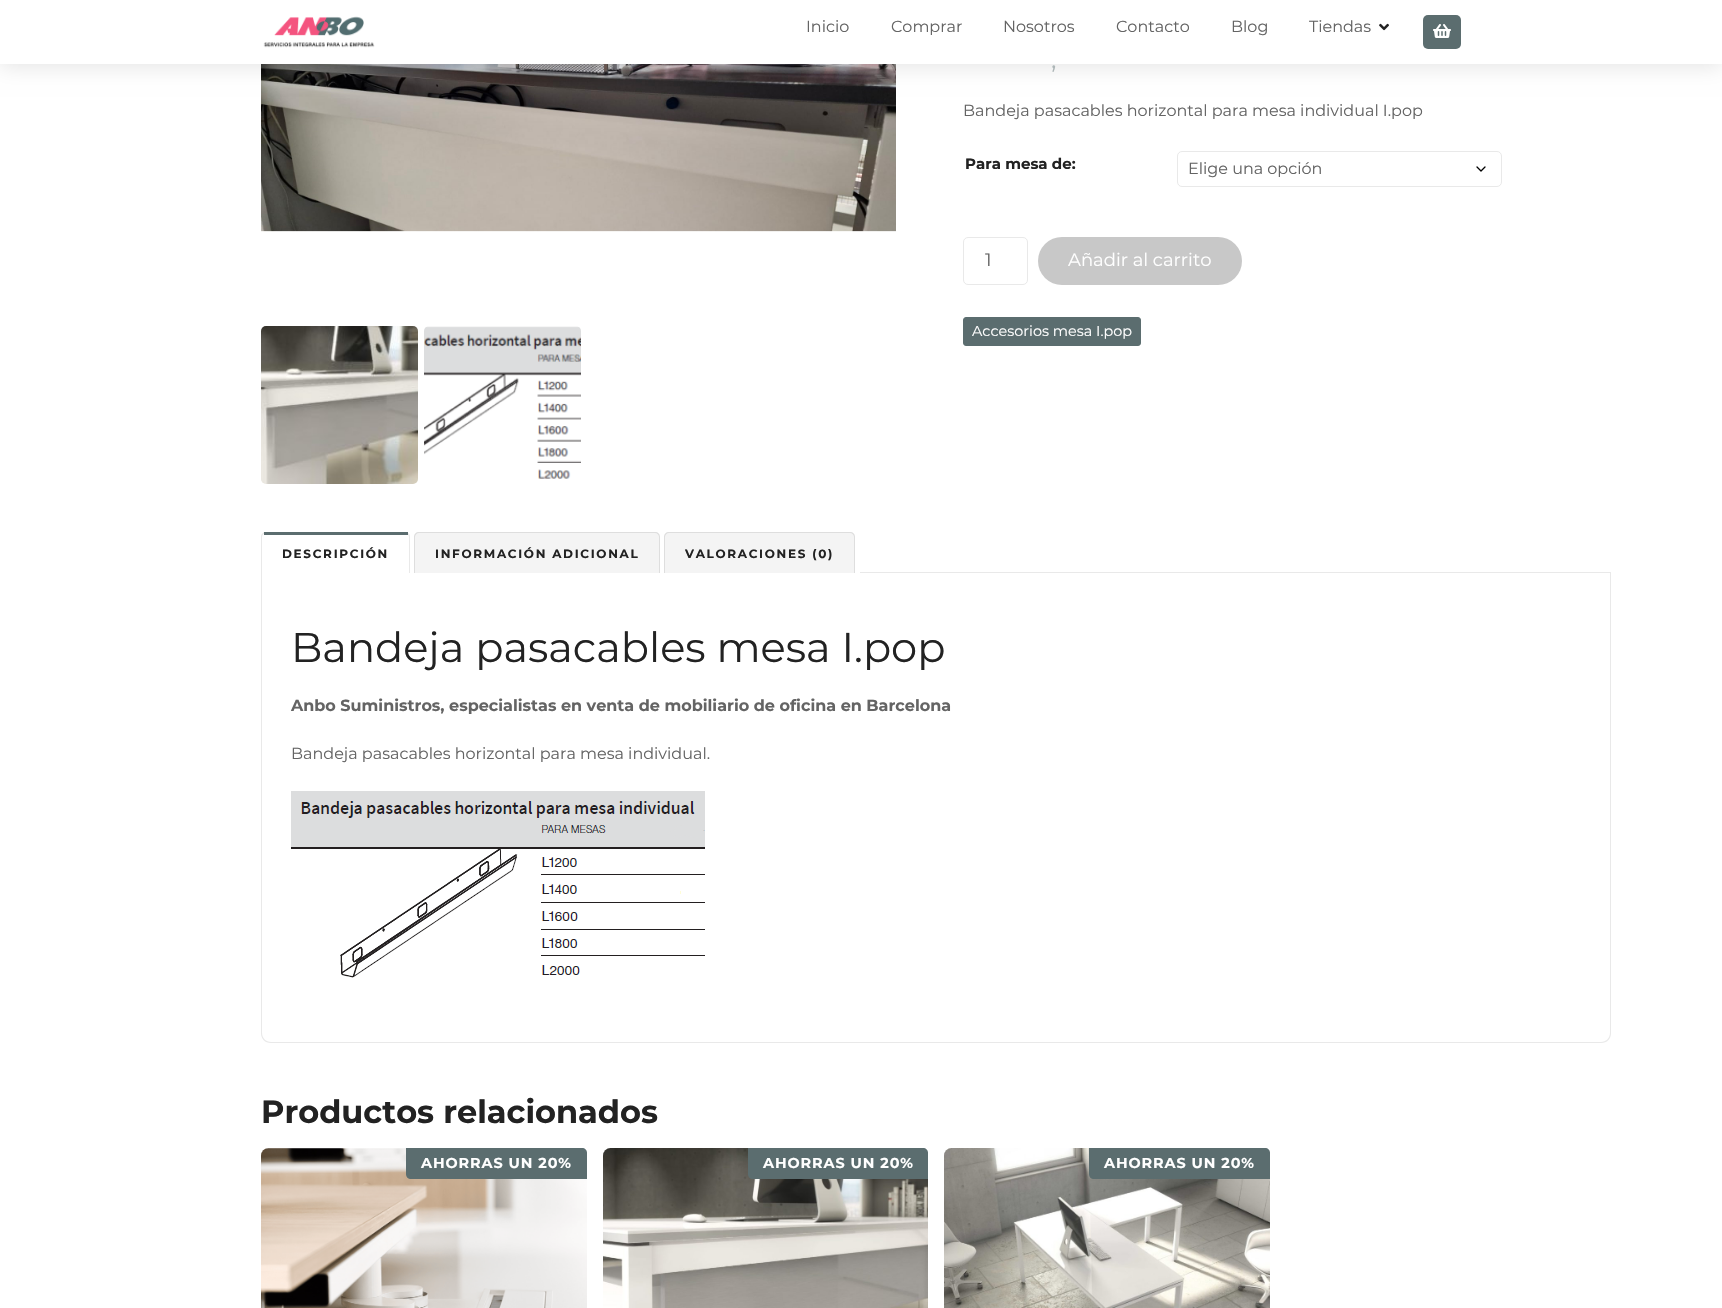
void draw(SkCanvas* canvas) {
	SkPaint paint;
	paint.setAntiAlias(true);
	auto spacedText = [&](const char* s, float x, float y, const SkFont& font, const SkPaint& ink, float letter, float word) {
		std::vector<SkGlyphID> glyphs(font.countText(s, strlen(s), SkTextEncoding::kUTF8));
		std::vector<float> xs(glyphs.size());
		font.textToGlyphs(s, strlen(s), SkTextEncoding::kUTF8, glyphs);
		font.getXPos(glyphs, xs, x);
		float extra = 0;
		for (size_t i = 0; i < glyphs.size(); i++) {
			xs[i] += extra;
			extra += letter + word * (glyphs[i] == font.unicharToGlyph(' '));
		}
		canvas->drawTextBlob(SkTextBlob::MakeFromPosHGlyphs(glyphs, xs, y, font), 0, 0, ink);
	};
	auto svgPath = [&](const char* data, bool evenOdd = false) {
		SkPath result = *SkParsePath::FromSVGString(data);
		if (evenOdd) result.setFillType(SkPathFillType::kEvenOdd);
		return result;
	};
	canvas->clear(0xffffffff);
	canvas->drawImageRect(SkImages::DeferredFromEncodedData(SkData::MakeFromFileName("img4.png")), SkRect::MakeXYWH(261, 64, 635, 168), SkSamplingOptions());
	paint.setColor(0x1a000000);
	paint.setMaskFilter(SkMaskFilter::MakeBlur(kNormal_SkBlurStyle, 10));
	canvas->drawRect(SkRect::MakeXYWH(0, 3, 1722, 64), paint);
	paint.setMaskFilter(nullptr);
	paint.setColor(0xffffffff);
	canvas->drawRect(SkRect::MakeXYWH(0, 0, 1722, 64), paint);
	canvas->drawImageRect(SkImages::DeferredFromEncodedData(SkData::MakeFromFileName("img1.png")), SkRect::MakeXYWH(263, 16, 112, 32), SkSamplingOptions());
	SkFont f1(fontMgr->matchFamilyStyle("Montserrat", SkFontStyle::Normal()), 16);
	f1.setSubpixel(true);
	paint.setColor(0xff646464);
	canvas->drawString("Inicio", 806, 32, f1, paint);
	canvas->drawString("Comprar", 891, 32, f1, paint);
	canvas->drawString("Nosotros", 1003, 32, f1, paint);
	canvas->drawString("Contacto", 1116, 32, f1, paint);
	canvas->drawString("Blog", 1231, 32, f1, paint);
	canvas->drawString("Tiendas", 1309, 32, f1, paint);
	canvas->drawImageRect(SkImages::DeferredFromEncodedData(SkData::MakeFromFileName("img2.png")), SkRect::MakeXYWH(1379, 23, 10, 8), SkSamplingOptions());
	paint.setColor(0xff5b6d6f);
	canvas->drawRoundRect(SkRect::MakeXYWH(1423, 15, 38, 34), 5, 5, paint);
	canvas->drawImageRect(SkImages::DeferredFromEncodedData(SkData::MakeFromFileName("img3.png")), SkRect::MakeXYWH(1433, 24, 18, 14), SkSamplingOptions());
	canvas->drawImageRect(SkImages::DeferredFromEncodedData(SkData::MakeFromFileName("img5.png")), SkRect::MakeXYWH(261, 326, 157, 158), SkSamplingOptions());
	canvas->drawImageRect(SkImages::DeferredFromEncodedData(SkData::MakeFromFileName("img6.png")), SkRect::MakeXYWH(424, 326, 157, 153), SkSamplingOptions());
	SkFont f2(fontMgr->matchFamilyStyle("Montserrat", SkFontStyle::Normal()), 26);
	f2.setSubpixel(true);
	paint.setColor(0xffadb6b7);
	canvas->drawString(",", 1051, 68, f2, paint);
	paint.setColor(0xff646464);
	canvas->drawString("Bandeja pasacables horizontal para mesa individual I.pop", 963, 116, f1, paint);
	SkFont f3(fontMgr->matchFamilyStyle("Montserrat", SkFontStyle::Bold()), 15);
	f3.setSubpixel(true);
	paint.setColor(0xff222222);
	canvas->drawString("Para mesa de:", 965, 169, f3, paint);
	paint.setStroke(true);
	paint.setStrokeWidth(1.3);
	paint.setStrokeCap(SkPaint::kRound_Cap);
	paint.setStrokeJoin(SkPaint::kRound_Join);
	paint.setColor(0xff000000);
	canvas->drawPath(svgPath("M1477 167L1481 171L1485 167"), paint);
	paint.setStrokeWidth(1);
	paint.setStrokeCap(SkPaint::kButt_Cap);
	paint.setStrokeJoin(SkPaint::kMiter_Join);
	paint.setColor(0xffe9e9e9);
	canvas->drawRoundRect(SkRect::MakeXYWH(1177.5, 151.5, 324, 35), 4.5, 4.5, paint);
	paint.setStroke(false);
	paint.setColor(0xff646464);
	canvas->drawString("Elige una opción", 1188, 174, f1, paint);
	paint.setStroke(true);
	paint.setColor(0xffe9e9e9);
	canvas->drawRoundRect(SkRect::MakeXYWH(963.5, 237.5, 64, 47), 4.5, 4.5, paint);
	SkFont f4(fontMgr->matchFamilyStyle("Montserrat", SkFontStyle::Normal()), 18);
	f4.setSubpixel(true);
	paint.setStroke(false);
	paint.setColor(0xff646464);
	canvas->drawString("1", 985, 266, f4, paint);
	paint.setColor(0xffc8c8c8);
	canvas->drawRoundRect(SkRect::MakeXYWH(1038, 237, 204, 48), 24, 24, paint);
	paint.setColor(0xffffffff);
	canvas->drawString("Añadir al carrito", 1068, 266, f4, paint);
	paint.setColor(0xff5b6d6f);
	canvas->drawRoundRect(SkRect::MakeXYWH(963.5, 317.5, 177, 28), 2.5, 2.5, paint);
	paint.setStroke(true);
	canvas->drawRoundRect(SkRect::MakeXYWH(963.5, 317.5, 177, 28), 2.5, 2.5, paint);
	SkFont f5(fontMgr->matchFamilyStyle("Montserrat", SkFontStyle::Normal()), 14.4);
	f5.setSubpixel(true);
	paint.setStroke(false);
	paint.setColor(0xffffffff);
	canvas->drawString("Accesorios mesa I.pop", 972, 336, f5, paint);
	paint.setColor(0xffe9e9e9);
	canvas->drawPath(svgPath("M266 532H405C408 532 410 534 410 537V573H261V537C261 534 263 532 266 532ZM266 533H405C407 533 409 535 409 537V573H262V537C262 535 264 533 266 533Z", true), paint);
	paint.setColor(0xff5b6d6f);
	canvas->drawRect(SkRect::MakeXYWH(264, 532, 144, 3), paint);
	SkFont f6(fontMgr->matchFamilyStyle("Montserrat", SkFontStyle::Bold()), 12);
	f6.setSubpixel(true);
	paint.setColor(0xff222222);
	spacedText("DESCRIPCIÓN", 282, 558, f6, paint, 1.7, 0);
	paint.setColor(0xfff4f4f4);
	canvas->drawPath(svgPath("M419 532H655C658 532 660 534 660 537V573H414V537C414 534 416 532 419 532Z"), paint);
	paint.setColor(0x1a222222);
	canvas->drawPath(svgPath("M419 532H655C658 532 660 534 660 537V573H414V537C414 534 416 532 419 532ZM419 533H655C657 533 659 535 659 537V573H415V537C415 535 417 533 419 533Z", true), paint);
	paint.setColor(0xff222222);
	spacedText("INFORMACIÓN ADICIONAL", 435, 558, f6, paint, 1.7, 0);
	paint.setColor(0xfff4f4f4);
	canvas->drawPath(svgPath("M669 532H850C853 532 855 534 855 537V573H664V537C664 534 666 532 669 532Z"), paint);
	paint.setColor(0x1a222222);
	canvas->drawPath(svgPath("M669 532H850C853 532 855 534 855 537V573H664V537C664 534 666 532 669 532ZM669 533H850C852 533 854 535 854 537V573H665V537C665 535 667 533 669 533Z", true), paint);
	paint.setColor(0xff222222);
	spacedText("VALORACIONES (0)", 685, 558, f6, paint, 1.7, 0);
	paint.setColor(0xffe9e9e9);
	canvas->drawRect(SkRect::MakeXYWH(860, 572, 751, 1), paint);
	canvas->drawPath(svgPath("M261 573H1611V1033C1611 1039 1607 1043 1601 1043H271C265 1043 261 1039 261 1033ZM262 573H1610V1033C1610 1038 1606 1042 1601 1042H271C266 1042 262 1038 262 1033Z", true), paint);
	SkFont f7(fontMgr->matchFamilyStyle("Montserrat", SkFontStyle::Normal()), 41.6);
	f7.setSubpixel(true);
	paint.setColor(0xff222222);
	canvas->drawString("Bandeja pasacables mesa I.pop", 291, 662, f7, paint);
	SkFont f8(fontMgr->matchFamilyStyle("Montserrat", SkFontStyle::Bold()), 16);
	f8.setSubpixel(true);
	paint.setColor(0xff646464);
	canvas->drawString("Anbo Suministros, especialistas en venta de mobiliario de oficina en Barcelona", 291, 711, f8, paint);
	canvas->drawString("Bandeja pasacables horizontal para mesa individual.", 291, 759, f1, paint);
	canvas->drawImageRect(SkImages::DeferredFromEncodedData(SkData::MakeFromFileName("img7.png")), SkRect::MakeXYWH(291, 791, 414, 187), SkSamplingOptions());
	SkFont f9(fontMgr->matchFamilyStyle("Montserrat", SkFontStyle::Bold()), 32);
	f9.setSubpixel(true);
	paint.setColor(0xff222222);
	canvas->drawString("Productos relacionados", 261, 1123, f9, paint);
	canvas->drawImageRect(SkImages::DeferredFromEncodedData(SkData::MakeFromFileName("img8.png")), SkRect::MakeXYWH(261, 1148, 326, 160), SkSamplingOptions());
	paint.setColor(0xff5b6d6f);
	canvas->drawPath(svgPath("M406 1148H582C585 1148 587 1150 587 1153V1179H411C408 1179 406 1177 406 1174Z"), paint);
	SkFont f10(fontMgr->matchFamilyStyle("Montserrat", SkFontStyle::Bold()), 14.4);
	f10.setSubpixel(true);
	paint.setColor(0xffffffff);
	spacedText("AHORRAS UN 20%", 421, 1168, f10, paint, 0.9, 0);
	canvas->drawImageRect(SkImages::DeferredFromEncodedData(SkData::MakeFromFileName("img9.png")), SkRect::MakeXYWH(603, 1148, 325, 160), SkSamplingOptions());
	paint.setColor(0xff5b6d6f);
	canvas->drawPath(svgPath("M748 1148H923C926 1148 928 1150 928 1153V1179H753C750 1179 748 1177 748 1174Z"), paint);
	paint.setColor(0xffffffff);
	spacedText("AHORRAS UN 20%", 763, 1168, f10, paint, 0.9, 0);
	canvas->drawImageRect(SkImages::DeferredFromEncodedData(SkData::MakeFromFileName("img10.png")), SkRect::MakeXYWH(944, 1148, 326, 160), SkSamplingOptions());
	paint.setColor(0xff5b6d6f);
	canvas->drawPath(svgPath("M1089 1148H1265C1268 1148 1270 1150 1270 1153V1179H1094C1091 1179 1089 1177 1089 1174Z"), paint);
	paint.setColor(0xffffffff);
	spacedText("AHORRAS UN 20%", 1104, 1168, f10, paint, 0.9, 0);
}
